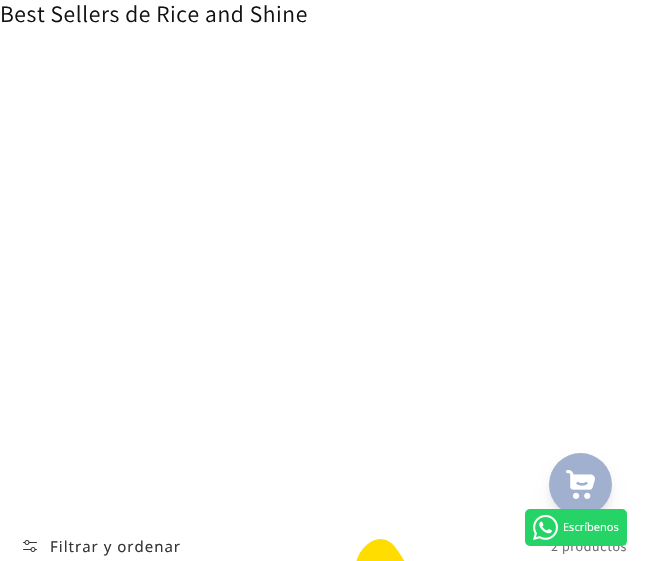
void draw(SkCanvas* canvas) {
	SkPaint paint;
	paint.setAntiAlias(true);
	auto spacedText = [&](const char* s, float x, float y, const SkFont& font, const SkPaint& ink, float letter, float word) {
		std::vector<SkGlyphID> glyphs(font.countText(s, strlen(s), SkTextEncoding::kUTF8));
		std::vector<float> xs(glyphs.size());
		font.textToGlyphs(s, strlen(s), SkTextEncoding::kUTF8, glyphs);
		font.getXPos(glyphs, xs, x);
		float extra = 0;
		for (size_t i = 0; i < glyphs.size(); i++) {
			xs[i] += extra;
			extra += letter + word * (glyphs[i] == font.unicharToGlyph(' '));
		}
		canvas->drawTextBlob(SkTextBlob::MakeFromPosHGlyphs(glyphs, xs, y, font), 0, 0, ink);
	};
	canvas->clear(0xffffffff);
	SkFont f1(fontMgr->matchFamilyStyle("Assistant", SkFontStyle::Normal()), 23.5);
	f1.setSubpixel(true);
	paint.setColor(0xff121212);
	spacedText("Best Sellers de Rice and Shine", 0, 22, f1, paint, 0.6, 0);
	canvas->drawImageRect(SkImages::DeferredFromEncodedData(SkData::MakeFromFileName("img1.png")), SkRect::MakeXYWH(356, 539, 49, 22), SkSamplingOptions());
	canvas->drawImageRect(SkImages::DeferredFromEncodedData(SkData::MakeFromFileName("img2.png")), SkRect::MakeXYWH(23, 540, 14, 12), SkSamplingOptions());
	SkFont f2(fontMgr->matchFamilyStyle("Noto Sans", SkFontStyle::Normal()), 15);
	f2.setSubpixel(true);
	paint.setColor(0xff363636);
	spacedText("Filtrar y ordenar", 50, 552, f2, paint, 1, 0);
	SkFont f3(fontMgr->matchFamilyStyle("Assistant", SkFontStyle::Normal()), 14);
	f3.setSubpixel(true);
	paint.setColor(0xff646669);
	spacedText("2 productos", 551, 551, f3, paint, 0.6, 0);
	paint.setColor(0x1a000000);
	paint.setMaskFilter(SkMaskFilter::MakeBlur(kNormal_SkBlurStyle, 3));
	canvas->drawRoundRect(SkRect::MakeXYWH(553, 461, 55, 55), 27.5, 27.5, paint);
	paint.setMaskFilter(nullptr);
	paint.setMaskFilter(SkMaskFilter::MakeBlur(kNormal_SkBlurStyle, 7.5));
	canvas->drawRoundRect(SkRect::MakeXYWH(552, 466, 57, 57), 28.5, 28.5, paint);
	paint.setMaskFilter(nullptr);
	paint.setColor(0xffa2b0d0);
	canvas->drawCircle(580.5, 484.5, 31.5, paint);
	canvas->drawImageRect(SkImages::DeferredFromEncodedData(SkData::MakeFromFileName("img3.png")), SkRect::MakeXYWH(566, 470, 29, 29), SkSamplingOptions());
	paint.setColor(0xff25d366);
	canvas->drawRoundRect(SkRect::MakeXYWH(525, 509, 102, 37), 5, 5, paint);
	canvas->drawImageRect(SkImages::DeferredFromEncodedData(SkData::MakeFromFileName("img4.png")), SkRect::MakeXYWH(533, 515, 25, 25), SkSamplingOptions());
	SkFont f4(fontMgr->matchFamilyStyle("Noto Sans", SkFontStyle::Normal()), 11);
	f4.setSubpixel(true);
	paint.setColor(0xffffffff);
	canvas->drawString("Escríbenos", 563, 531, f4, paint);
}
